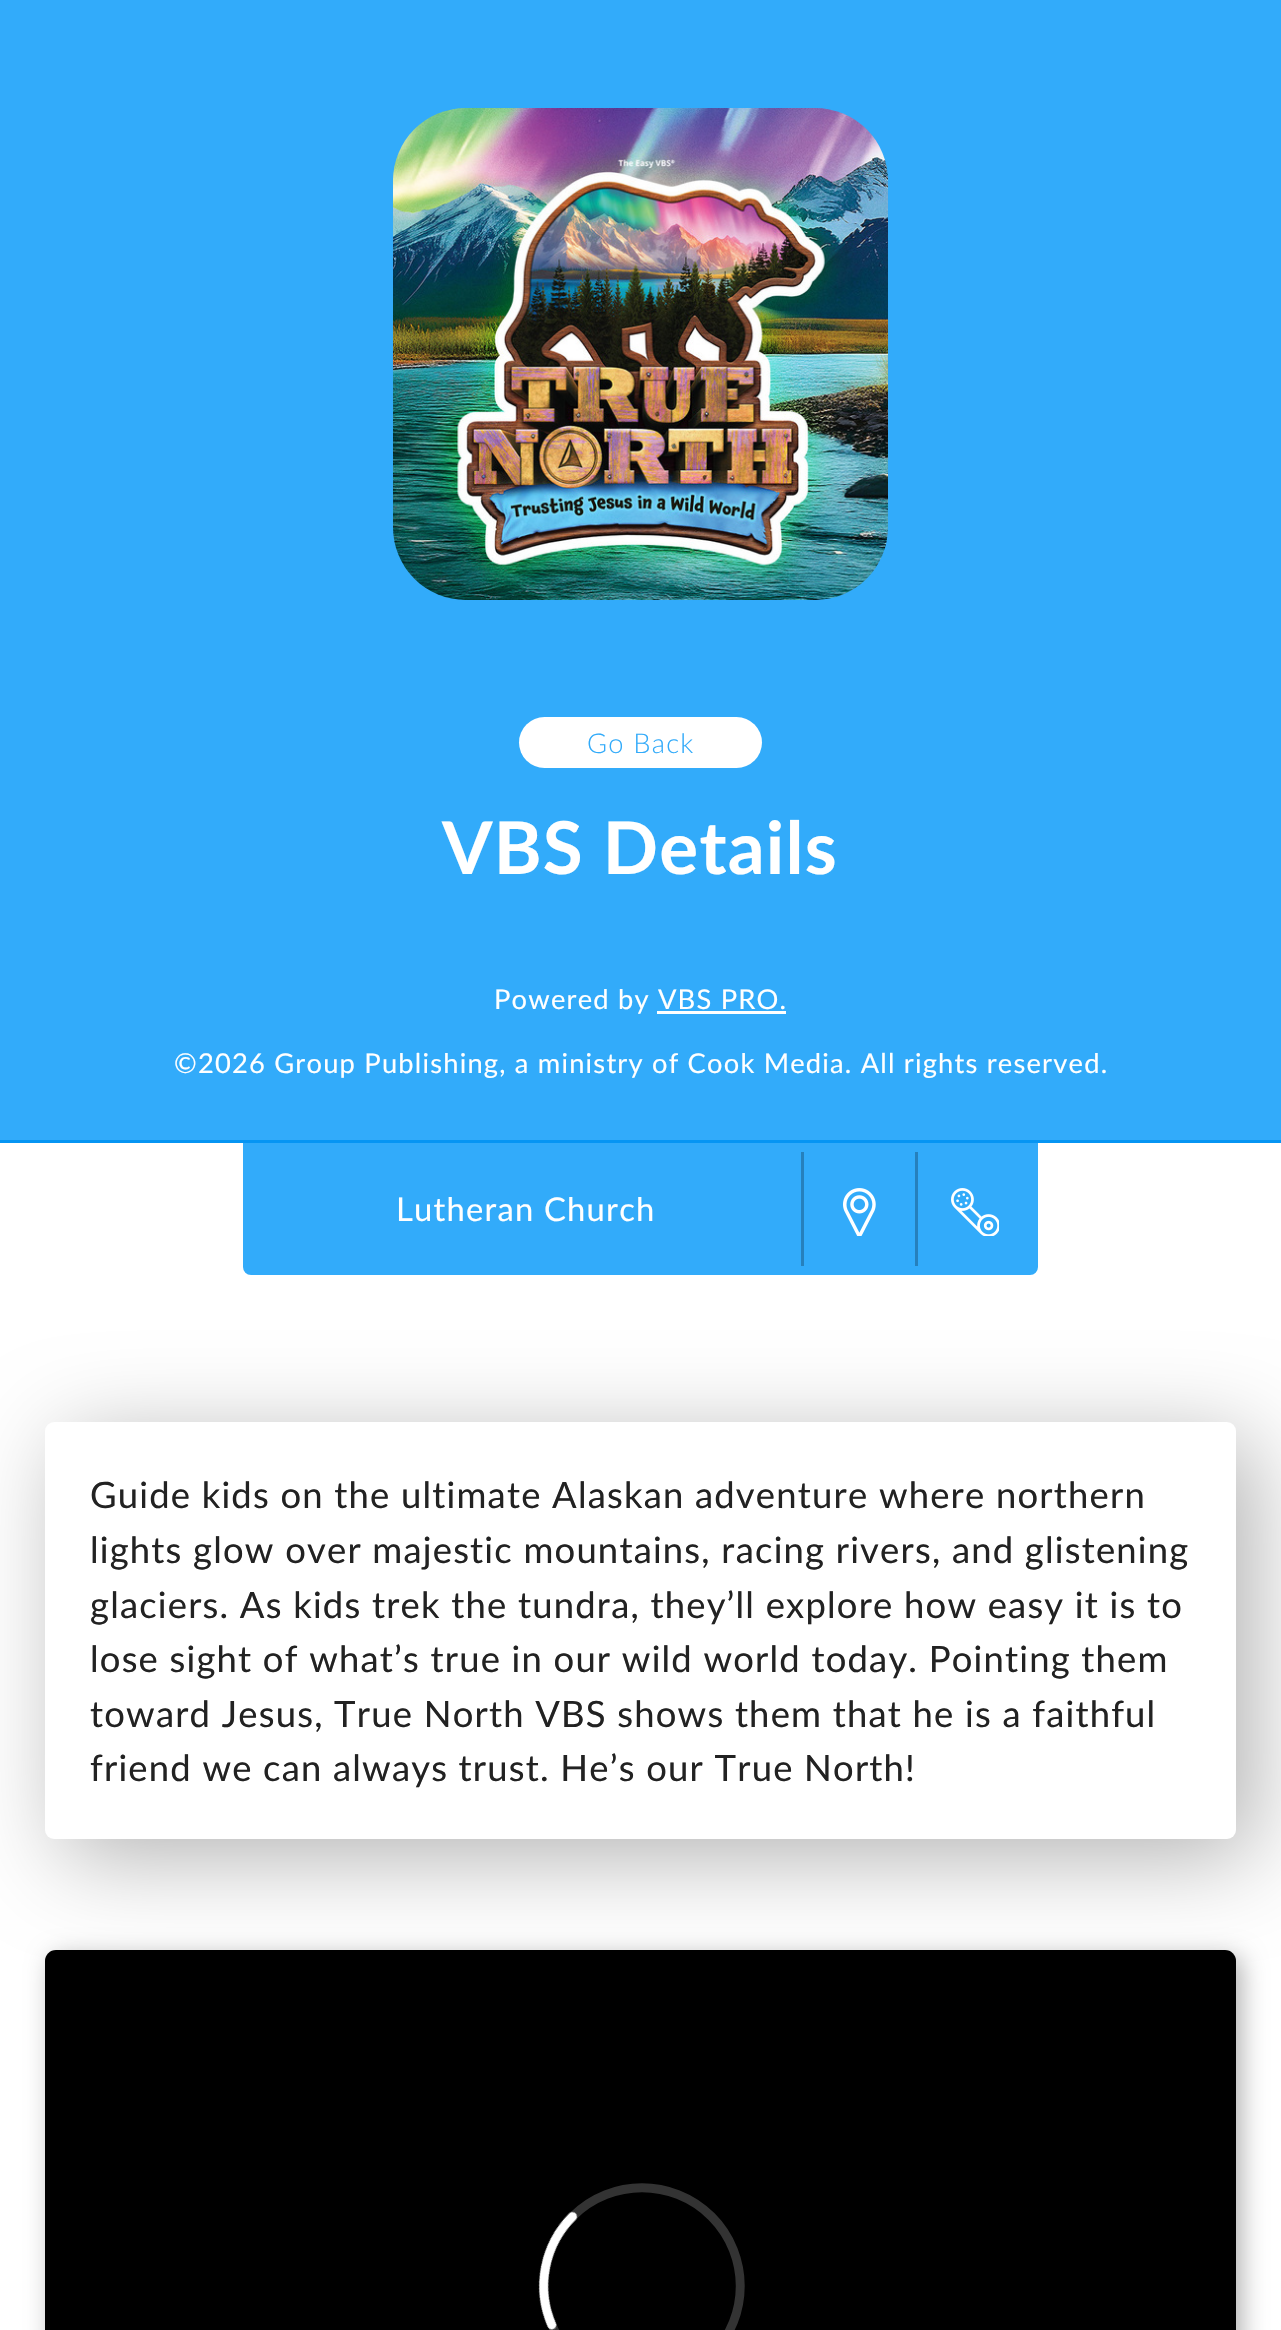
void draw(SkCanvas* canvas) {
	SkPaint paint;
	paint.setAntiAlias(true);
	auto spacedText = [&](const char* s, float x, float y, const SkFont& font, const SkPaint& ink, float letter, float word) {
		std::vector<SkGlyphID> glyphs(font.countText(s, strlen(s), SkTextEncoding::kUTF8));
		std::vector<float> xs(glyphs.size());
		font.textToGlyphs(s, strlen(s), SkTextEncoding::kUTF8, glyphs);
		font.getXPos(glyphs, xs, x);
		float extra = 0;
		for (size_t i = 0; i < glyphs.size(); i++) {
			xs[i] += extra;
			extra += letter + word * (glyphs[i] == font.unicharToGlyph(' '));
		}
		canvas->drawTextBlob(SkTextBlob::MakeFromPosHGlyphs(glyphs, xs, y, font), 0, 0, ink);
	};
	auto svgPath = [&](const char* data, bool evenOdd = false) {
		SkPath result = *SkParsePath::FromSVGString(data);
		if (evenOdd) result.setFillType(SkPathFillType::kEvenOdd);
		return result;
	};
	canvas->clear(0xffffffff);
	paint.setColor(0xff0695f3);
	canvas->drawRect(SkRect::MakeXYWH(0, 1140, 1281, 3), paint);
	paint.setColor(0xff32abfa);
	canvas->drawRect(SkRect::MakeXYWH(0, 0, 1281, 1140), paint);
	canvas->drawImageRect(SkImages::DeferredFromEncodedData(SkData::MakeFromFileName("img1.png")), SkRect::MakeXYWH(393, 108, 495, 492), SkSamplingOptions());
	paint.setColor(0xffffffff);
	canvas->drawRoundRect(SkRect::MakeXYWH(519, 717, 243, 51), 25.5, 25.5, paint);
	SkFont f1(fontMgr->matchFamilyStyle("Lato", SkFontStyle(300, SkFontStyle::kNormal_Width, SkFontStyle::kUpright_Slant)), 27.3);
	f1.setSubpixel(true);
	paint.setColor(0xff32abfa);
	spacedText("Go Back", 587, 753, f1, paint, 1.2, 0);
	SkFont f2(fontMgr->matchFamilyStyle("Lato", SkFontStyle::Bold()), 72.75);
	f2.setSubpixel(true);
	paint.setColor(0xffffffff);
	spacedText("VBS Details", 442, 874, f2, paint, 1.2, 0);
	SkFont f3(fontMgr->matchFamilyStyle("Lato", SkFontStyle::Normal()), 27.3);
	f3.setSubpixel(true);
	spacedText("Powered by VBS PRO.", 494, 1009, f3, paint, 1.2, 0);
	canvas->drawRect(SkRect::MakeXYWH(657, 1011, 129, 3), paint);
	spacedText("©2026 Group Publishing, a ministry of Cook Media. All rights reserved.", 174, 1073, f3, paint, 1.2, 0);
	paint.setColor(0xff32abfa);
	canvas->drawPath(svgPath("M247.5 1147.5H1033.5V1267C1033.5 1269 1032 1270.5 1030 1270.5H251C249 1270.5 247.5 1269 247.5 1267Z"), paint);
	paint.setStroke(true);
	paint.setStrokeWidth(9);
	canvas->drawPath(svgPath("M247.5 1147.5H1033.5V1267C1033.5 1269 1032 1270.5 1030 1270.5H251C249 1270.5 247.5 1269 247.5 1267Z"), paint);
	SkFont f4(fontMgr->matchFamilyStyle("Lato", SkFontStyle::Normal()), 32.75);
	f4.setSubpixel(true);
	paint.setStroke(false);
	paint.setColor(0xffffffff);
	spacedText("Lutheran Church", 396, 1221, f4, paint, 1.2, 0);
	paint.setColor(0xff2680bc);
	canvas->drawRect(SkRect::MakeXYWH(801, 1152, 3, 114), paint);
	canvas->drawImageRect(SkImages::DeferredFromEncodedData(SkData::MakeFromFileName("img2.png")), SkRect::MakeXYWH(843, 1188, 33, 48), SkSamplingOptions());
	canvas->drawRect(SkRect::MakeXYWH(915, 1152, 3, 114), paint);
	canvas->drawImageRect(SkImages::DeferredFromEncodedData(SkData::MakeFromFileName("img3.png")), SkRect::MakeXYWH(951, 1188, 48, 48), SkSamplingOptions());
	paint.setColor(0x4d000000);
	paint.setMaskFilter(SkMaskFilter::MakeBlur(kNormal_SkBlurStyle, 12.5));
	canvas->drawRoundRect(SkRect::MakeXYWH(51, 1956, 1191, 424), 12, 12, paint);
	paint.setMaskFilter(nullptr);
	canvas->drawImageRect(SkImages::DeferredFromEncodedData(SkData::MakeFromFileName("img4.png")), SkRect::MakeXYWH(45, 1950, 1191, 380), SkSamplingOptions());
	paint.setMaskFilter(SkMaskFilter::MakeBlur(kNormal_SkBlurStyle, 45.5));
	canvas->drawRoundRect(SkRect::MakeXYWH(63, 1440, 1191, 417), 9, 9, paint);
	paint.setMaskFilter(nullptr);
	paint.setColor(0xffffffff);
	canvas->drawRoundRect(SkRect::MakeXYWH(45, 1422, 1191, 417), 9, 9, paint);
	SkFont f5(fontMgr->matchFamilyStyle("Lato", SkFontStyle::Normal()), 36.4);
	f5.setSubpixel(true);
	paint.setColor(0xff222222);
	spacedText("Guide kids on the ultimate Alaskan adventure where northern", 90, 1508, f5, paint, 1.2, 0);
	spacedText("lights glow over majestic mountains, racing rivers, and glistening", 90, 1563, f5, paint, 1.2, 0);
	spacedText("glaciers. As kids trek the tundra, they’ll explore how easy it is to", 90, 1618, f5, paint, 1.2, 0);
	spacedText("lose sight of what’s true in our wild world today. Pointing them", 90, 1672, f5, paint, 1.2, 0);
	spacedText("toward Jesus, True North VBS shows them that he is a faithful", 90, 1727, f5, paint, 1.2, 0);
	spacedText("friend we can always trust. He’s our True North!", 90, 1781, f5, paint, 1.2, 0);
}
